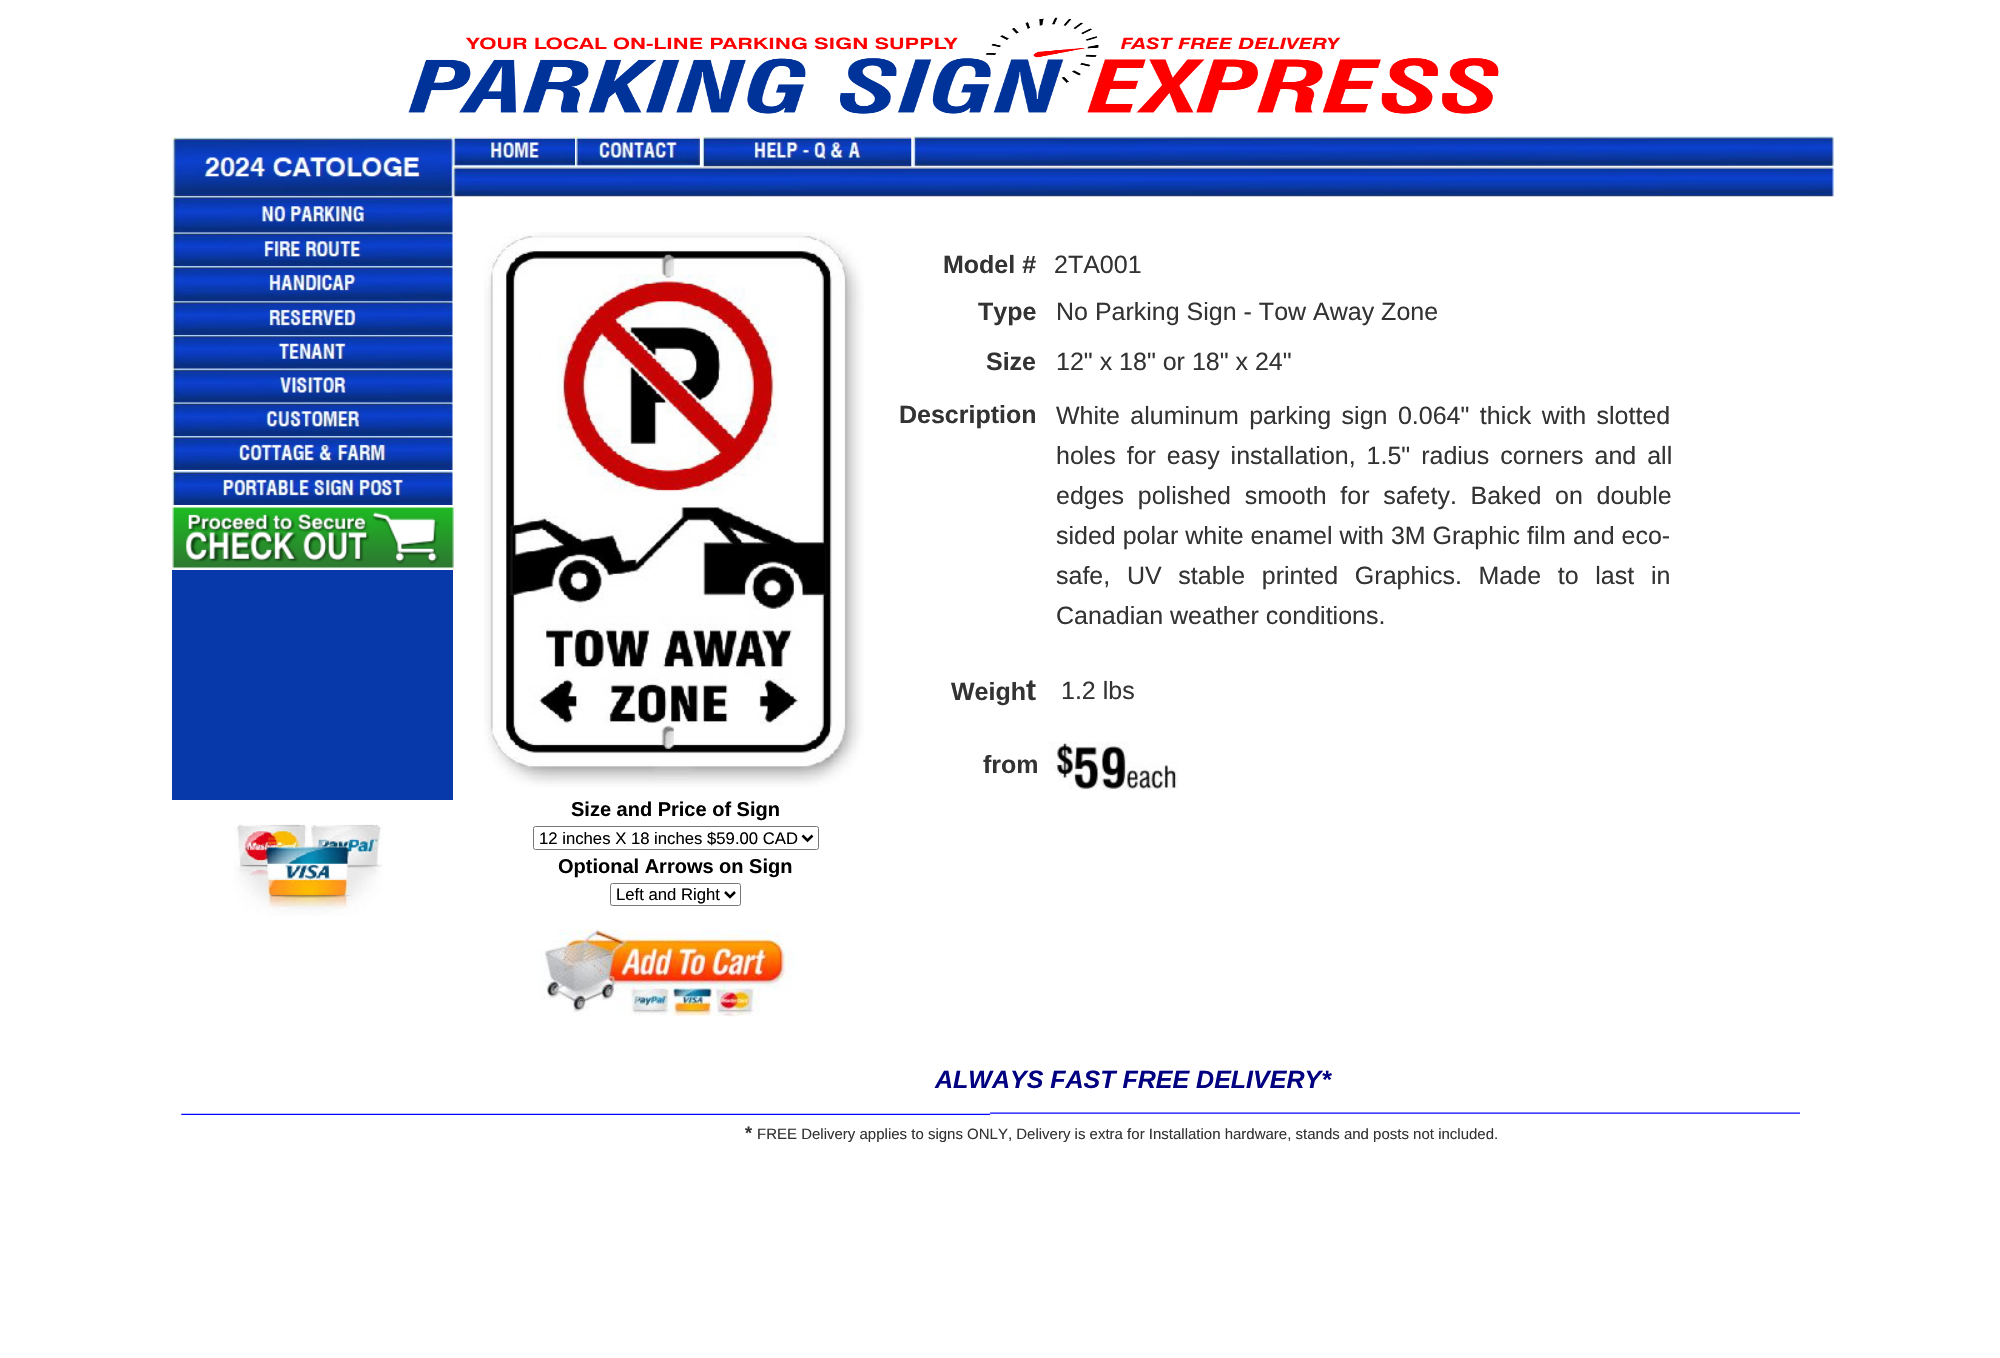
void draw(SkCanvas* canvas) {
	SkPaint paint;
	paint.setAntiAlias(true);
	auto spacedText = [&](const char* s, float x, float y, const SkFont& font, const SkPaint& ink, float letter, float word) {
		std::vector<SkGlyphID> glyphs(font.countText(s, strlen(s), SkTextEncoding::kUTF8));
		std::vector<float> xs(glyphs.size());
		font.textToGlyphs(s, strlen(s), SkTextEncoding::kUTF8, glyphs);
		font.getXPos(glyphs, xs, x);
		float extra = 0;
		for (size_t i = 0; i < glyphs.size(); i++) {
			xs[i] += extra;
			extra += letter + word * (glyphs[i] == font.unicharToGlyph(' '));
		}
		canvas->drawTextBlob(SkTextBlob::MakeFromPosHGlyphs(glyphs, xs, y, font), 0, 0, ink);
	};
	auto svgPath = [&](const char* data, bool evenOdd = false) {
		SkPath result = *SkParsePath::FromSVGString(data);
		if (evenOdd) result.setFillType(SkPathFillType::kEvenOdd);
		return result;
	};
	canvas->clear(0xffffffff);
	canvas->drawImageRect(SkImages::DeferredFromEncodedData(SkData::MakeFromFileName("img1.png")), SkRect::MakeXYWH(408, 17, 1091, 97), SkSamplingOptions());
	canvas->drawImageRect(SkImages::DeferredFromEncodedData(SkData::MakeFromFileName("img3.png")), SkRect::MakeXYWH(452, 136, 126, 31), SkSamplingOptions());
	canvas->drawImageRect(SkImages::DeferredFromEncodedData(SkData::MakeFromFileName("img2.png")), SkRect::MakeXYWH(172, 137, 281, 60), SkSamplingOptions());
	canvas->drawImageRect(SkImages::DeferredFromEncodedData(SkData::MakeFromFileName("img4.png")), SkRect::MakeXYWH(575, 136, 125, 31), SkSamplingOptions());
	canvas->drawImageRect(SkImages::DeferredFromEncodedData(SkData::MakeFromFileName("img6.png")), SkRect::MakeXYWH(912, 136, 922, 31), SkSamplingOptions());
	canvas->drawImageRect(SkImages::DeferredFromEncodedData(SkData::MakeFromFileName("img7.png")), SkRect::MakeXYWH(452, 166, 1382, 31), SkSamplingOptions());
	canvas->drawImageRect(SkImages::DeferredFromEncodedData(SkData::MakeFromFileName("img5.png")), SkRect::MakeXYWH(702, 136, 210, 31), SkSamplingOptions());
	canvas->drawImageRect(SkImages::DeferredFromEncodedData(SkData::MakeFromFileName("img9.png")), SkRect::MakeXYWH(172, 232, 281, 35), SkSamplingOptions());
	canvas->drawImageRect(SkImages::DeferredFromEncodedData(SkData::MakeFromFileName("img8.png")), SkRect::MakeXYWH(172, 196, 281, 37), SkSamplingOptions());
	canvas->drawImageRect(SkImages::DeferredFromEncodedData(SkData::MakeFromFileName("img10.png")), SkRect::MakeXYWH(484, 232, 380, 555), SkSamplingOptions());
	SkFont f1(fontMgr->matchFamilyStyle("Liberation Sans", SkFontStyle::Bold()), 25);
	f1.setSubpixel(true);
	paint.setColor(0xff333333);
	canvas->drawString("Model #", 943, 273, f1, paint);
	SkFont f2(fontMgr->matchFamilyStyle("Liberation Sans", SkFontStyle::Normal()), 25);
	f2.setSubpixel(true);
	canvas->drawString("2TA001", 1054, 273, f2, paint);
	canvas->drawImageRect(SkImages::DeferredFromEncodedData(SkData::MakeFromFileName("img12.png")), SkRect::MakeXYWH(172, 301, 281, 34), SkSamplingOptions());
	canvas->drawImageRect(SkImages::DeferredFromEncodedData(SkData::MakeFromFileName("img11.png")), SkRect::MakeXYWH(172, 266, 281, 36), SkSamplingOptions());
	canvas->drawString("Type", 978, 320, f1, paint);
	canvas->drawString("No Parking Sign - Tow Away Zone", 1056, 320, f2, paint);
	canvas->drawImageRect(SkImages::DeferredFromEncodedData(SkData::MakeFromFileName("img13.png")), SkRect::MakeXYWH(172, 335, 281, 34), SkSamplingOptions());
	canvas->drawString("Size", 986, 370, f1, paint);
	canvas->drawString("12\" x 18\" or 18\" x 24\"", 1056, 370, f2, paint);
	canvas->drawImageRect(SkImages::DeferredFromEncodedData(SkData::MakeFromFileName("img15.png")), SkRect::MakeXYWH(172, 402, 281, 35), SkSamplingOptions());
	canvas->drawImageRect(SkImages::DeferredFromEncodedData(SkData::MakeFromFileName("img14.png")), SkRect::MakeXYWH(172, 368, 281, 35), SkSamplingOptions());
	canvas->drawString("Description", 899, 423, f1, paint);
	spacedText("White aluminum parking sign 0.064\" thick with slotted", 1056, 424, f2, paint, 0, 3.5);
	spacedText("holes for easy installation, 1.5\" radius corners and all", 1056, 464, f2, paint, 0, 4);
	spacedText("edges polished smooth for safety. Baked on double", 1056, 504, f2, paint, 0, 6.75);
	canvas->drawString("sided polar white enamel with 3M Graphic film and eco-", 1056, 544, f2, paint);
	spacedText("safe, UV stable printed Graphics. Made to last in", 1056, 584, f2, paint, 0, 9.75);
	canvas->drawString("Canadian weather conditions.", 1056, 624, f2, paint);
	canvas->drawImageRect(SkImages::DeferredFromEncodedData(SkData::MakeFromFileName("img16.png")), SkRect::MakeXYWH(172, 436, 281, 34), SkSamplingOptions());
	canvas->drawImageRect(SkImages::DeferredFromEncodedData(SkData::MakeFromFileName("img17.png")), SkRect::MakeXYWH(172, 471, 281, 34), SkSamplingOptions());
	canvas->drawImageRect(SkImages::DeferredFromEncodedData(SkData::MakeFromFileName("img18.png")), SkRect::MakeXYWH(172, 507, 282, 62), SkSamplingOptions());
	paint.setColor(0xff0739ab);
	canvas->drawRect(SkRect::MakeXYWH(172, 570, 281, 230), paint);
	paint.setColor(0xff333333);
	canvas->drawString("Weigh", 951, 700, f1, paint);
	SkFont f3(fontMgr->matchFamilyStyle("Liberation Sans", SkFontStyle::Bold()), 30);
	f3.setSubpixel(true);
	canvas->drawString("t", 1026, 700, f3, paint);
	canvas->drawString("1.2 lbs", 1061, 699, f2, paint);
	canvas->drawString("from", 983, 773, f1, paint);
	canvas->drawImageRect(SkImages::DeferredFromEncodedData(SkData::MakeFromFileName("img19.png")), SkRect::MakeXYWH(1049, 741, 130, 49), SkSamplingOptions());
	canvas->drawImageRect(SkImages::DeferredFromEncodedData(SkData::MakeFromFileName("img20.png")), SkRect::MakeXYWH(234, 824, 149, 92), SkSamplingOptions());
	SkFont f4(fontMgr->matchFamilyStyle("Liberation Sans", SkFontStyle::Bold()), 20);
	f4.setSubpixel(true);
	paint.setColor(0xff000000);
	canvas->drawString("Size and Price of Sign", 571, 816, f4, paint);
	paint.setStroke(true);
	paint.setStrokeWidth(1);
	paint.setColor(0xff767676);
	canvas->drawRoundRect(SkRect::MakeXYWH(533.5, 826.5, 285, 23), 2, 2, paint);
	paint.setStrokeWidth(2.5);
	paint.setColor(0xff000000);
	canvas->drawPath(svgPath("M802.5 835.5L807.5 840.5L812.5 835.5"), paint);
	SkFont f5(fontMgr->matchFamilyStyle("Liberation Sans", SkFontStyle::Normal()), 16.7);
	f5.setSubpixel(true);
	paint.setStroke(false);
	canvas->drawString("12 inches X 18 inches $59.00 CAD", 539, 844, f5, paint);
	canvas->drawString("Optional Arrows on Sign", 558, 873, f4, paint);
	paint.setStroke(true);
	paint.setStrokeWidth(1);
	paint.setColor(0xff767676);
	canvas->drawRoundRect(SkRect::MakeXYWH(610.5, 883.5, 130, 22), 2, 2, paint);
	paint.setStrokeWidth(2.5);
	paint.setColor(0xff000000);
	canvas->drawPath(svgPath("M725 892L730 897L735 892"), paint);
	paint.setStroke(false);
	canvas->drawString("Left and Right", 616, 900, f5, paint);
	canvas->drawImageRect(SkImages::DeferredFromEncodedData(SkData::MakeFromFileName("img21.png")), SkRect::MakeXYWH(540, 929, 255, 88), SkSamplingOptions());
	SkFont f6(fontMgr->matchFamilyStyle("Liberation Sans", SkFontStyle::BoldItalic()), 25);
	f6.setSubpixel(true);
	paint.setColor(0xff000080);
	canvas->drawString("ALWAYS FAST FREE DELIVERY*", 935, 1088, f6, paint);
	canvas->drawImageRect(SkImages::DeferredFromEncodedData(SkData::MakeFromFileName("img22.png")), SkRect::MakeXYWH(181, 1112, 1619, 3), SkSamplingOptions());
	SkFont f7(fontMgr->matchFamilyStyle("Liberation Sans", SkFontStyle::Bold()), 18);
	f7.setSubpixel(true);
	paint.setColor(0xff333333);
	canvas->drawString("*", 745, 1139, f7, paint);
	SkFont f8(fontMgr->matchFamilyStyle("Liberation Sans", SkFontStyle::Normal()), 15);
	f8.setSubpixel(true);
	canvas->drawString("FREE Delivery applies to signs ONLY, Delivery is extra for Installation hardware, stands and posts not included.", 757, 1139, f8, paint);
}
